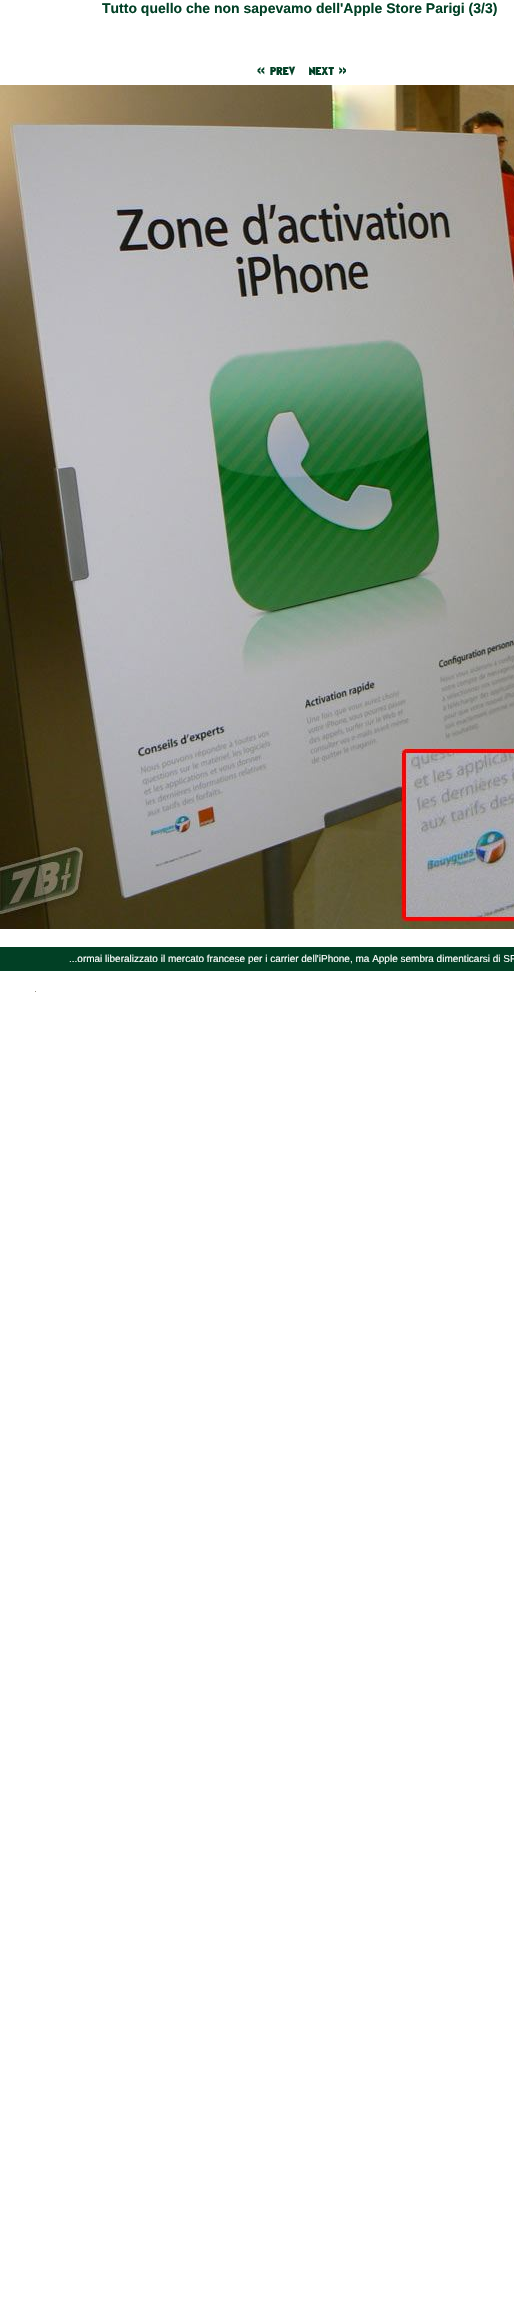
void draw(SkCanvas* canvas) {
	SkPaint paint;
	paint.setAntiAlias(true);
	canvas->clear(0xffffffff);
	SkFont f1(fontMgr->matchFamilyStyle("Liberation Sans", SkFontStyle::Bold()), 14);
	f1.setSubpixel(true);
	paint.setColor(0xff014025);
	canvas->drawString("Tutto quello che non sapevamo dell'Apple Store Parigi (3/3)", 102, 13, f1, paint);
	canvas->drawImageRect(SkImages::DeferredFromEncodedData(SkData::MakeFromFileName("img1.png")), SkRect::MakeXYWH(257, 66, 39, 10), SkSamplingOptions());
	canvas->drawImageRect(SkImages::DeferredFromEncodedData(SkData::MakeFromFileName("img2.png")), SkRect::MakeXYWH(309, 66, 37, 10), SkSamplingOptions());
	canvas->drawImageRect(SkImages::DeferredFromEncodedData(SkData::MakeFromFileName("img3.png")), SkRect::MakeXYWH(0, 85, 514, 844), SkSamplingOptions());
	canvas->drawRect(SkRect::MakeXYWH(0, 947, 514, 24), paint);
	SkFont f2(fontMgr->matchFamilyStyle("Liberation Sans", SkFontStyle::Normal()), 10);
	f2.setSubpixel(true);
	paint.setColor(0xffffffff);
	canvas->drawString("...ormai liberalizzato il mercato francese per i carrier dell'iPhone, ma Apple sembra dimenticarsi di SF", 69, 962, f2, paint);
	paint.setColor(0xff989182);
	canvas->drawRect(SkRect::MakeXYWH(35, 991, 1, 1), paint);
}
